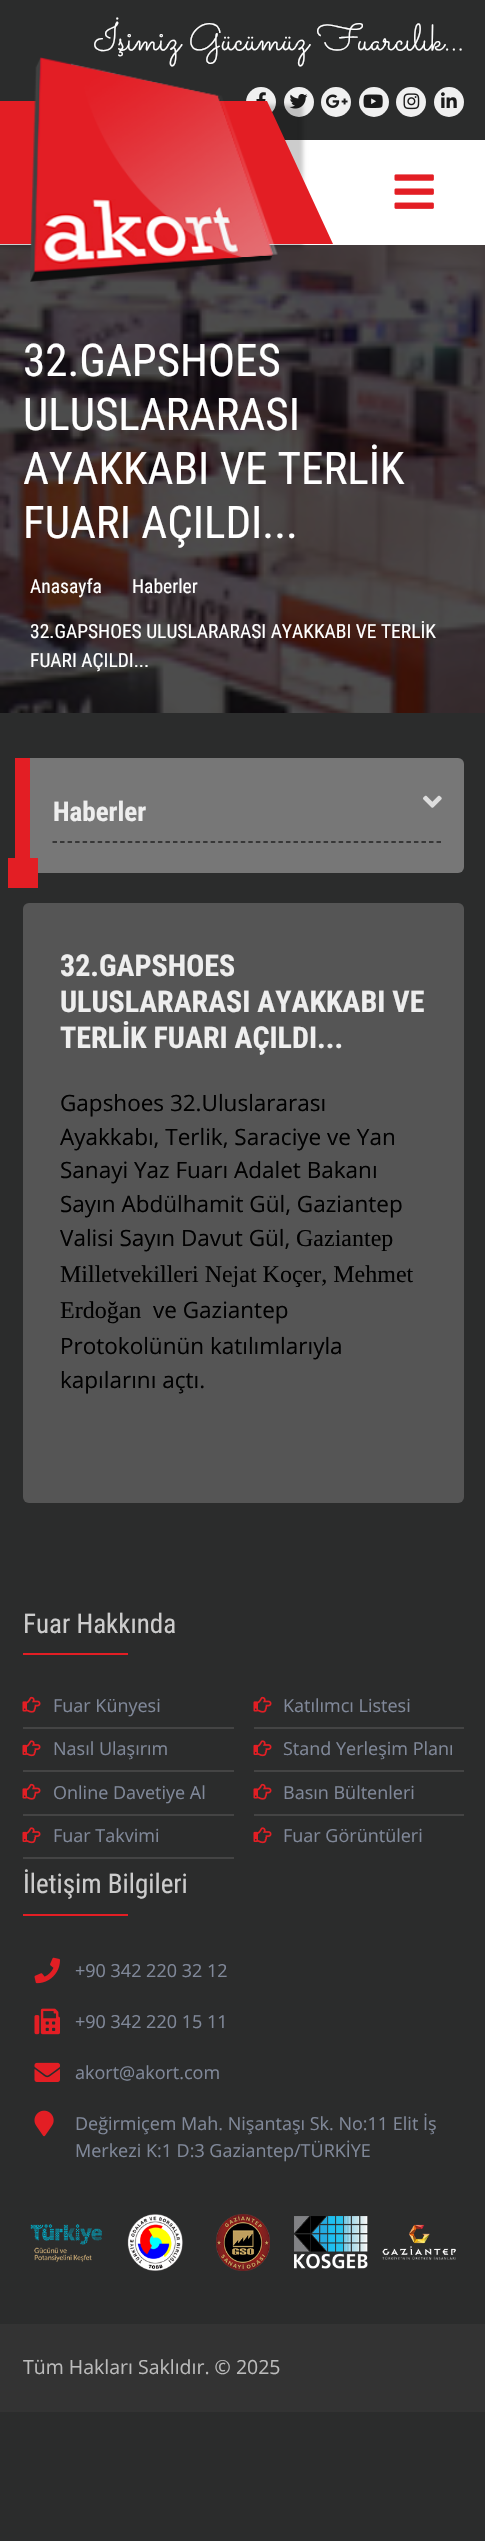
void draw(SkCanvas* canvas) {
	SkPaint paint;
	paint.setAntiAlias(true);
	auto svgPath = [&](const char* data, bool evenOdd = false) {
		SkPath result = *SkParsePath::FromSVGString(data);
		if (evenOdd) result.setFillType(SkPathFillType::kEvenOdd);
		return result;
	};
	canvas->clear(0xff2b2c2c);
	SkFont f1(fontMgr->matchFamilyStyle("Sacramento", SkFontStyle::Normal()), 37.5);
	f1.setSubpixel(true);
	paint.setColor(0xffffffff);
	canvas->drawString("İşimiz Gücümüz Fuarcılık...", 94, 50, f1, paint);
	paint.setColor(0xfff0f0f0);
	canvas->drawCircle(261, 102, 15, paint);
	canvas->drawImageRect(SkImages::DeferredFromEncodedData(SkData::MakeFromFileName("img1.png")), SkRect::MakeXYWH(256, 92, 10, 9), SkSamplingOptions());
	canvas->drawCircle(299, 102, 15, paint);
	canvas->drawImageRect(SkImages::DeferredFromEncodedData(SkData::MakeFromFileName("img2.png")), SkRect::MakeXYWH(289, 94, 19, 15), SkSamplingOptions());
	canvas->drawCircle(336, 102, 15, paint);
	canvas->drawImageRect(SkImages::DeferredFromEncodedData(SkData::MakeFromFileName("img3.png")), SkRect::MakeXYWH(326, 94, 22, 14), SkSamplingOptions());
	canvas->drawCircle(374, 102, 15, paint);
	canvas->drawImageRect(SkImages::DeferredFromEncodedData(SkData::MakeFromFileName("img4.png")), SkRect::MakeXYWH(363, 94, 20, 14), SkSamplingOptions());
	canvas->drawCircle(411, 102, 15, paint);
	canvas->drawImageRect(SkImages::DeferredFromEncodedData(SkData::MakeFromFileName("img5.png")), SkRect::MakeXYWH(403, 93, 17, 17), SkSamplingOptions());
	canvas->drawCircle(449, 102, 15, paint);
	canvas->drawImageRect(SkImages::DeferredFromEncodedData(SkData::MakeFromFileName("img6.png")), SkRect::MakeXYWH(441, 92, 16, 16), SkSamplingOptions());
	paint.setColor(0xffffffff);
	canvas->drawRect(SkRect::MakeXYWH(0, 140, 485, 105), paint);
	canvas->drawImageRect(SkImages::DeferredFromEncodedData(SkData::MakeFromFileName("img9.png")), SkRect::MakeXYWH(0, 245, 485, 468), SkSamplingOptions());
	paint.setColor(0x33000000);
	paint.setMaskFilter(SkMaskFilter::MakeBlur(kNormal_SkBlurStyle, 2));
	canvas->drawRect(SkRect::MakeXYWH(-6, 105, 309, 143), paint);
	paint.setMaskFilter(nullptr);
	paint.setColor(0xffe31e24);
	canvas->drawPath(svgPath("M-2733 101H267L333 244H-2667Z"), paint);
	canvas->drawImageRect(SkImages::DeferredFromEncodedData(SkData::MakeFromFileName("img7.png")), SkRect::MakeXYWH(30, 57, 248, 225), SkSamplingOptions());
	canvas->drawImageRect(SkImages::DeferredFromEncodedData(SkData::MakeFromFileName("img8.png")), SkRect::MakeXYWH(394, 174, 40, 35), SkSamplingOptions());
	SkFont f2(fontMgr->matchFamilyStyle("Roboto Condensed", SkFontStyle::Normal()), 45);
	f2.setSubpixel(true);
	paint.setColor(0xffffffff);
	canvas->drawString("32.GAPSHOES", 23, 376, f2, paint);
	canvas->drawString("ULUSLARARASI", 23, 430, f2, paint);
	canvas->drawString("AYAKKABI VE TERLİK", 23, 484, f2, paint);
	canvas->drawString("FUARI AÇILDI...", 23, 538, f2, paint);
	SkFont f3(fontMgr->matchFamilyStyle("Roboto Condensed", SkFontStyle::Normal()), 19.5);
	f3.setSubpixel(true);
	canvas->drawString("Anasayfa", 30, 593, f3, paint);
	canvas->drawString("Haberler", 132, 593, f3, paint);
	canvas->drawString("32.GAPSHOES ULUSLARARASI AYAKKABI VE TERLİK", 30, 638, f3, paint);
	canvas->drawString("FUARI AÇILDI...", 30, 667, f3, paint);
	paint.setColor(0xff777777);
	canvas->drawRoundRect(SkRect::MakeXYWH(23, 758, 441, 115), 6, 6, paint);
	paint.setColor(0xffe31e24);
	canvas->drawRect(SkRect::MakeXYWH(15, 758, 15, 100), paint);
	SkFont f4(fontMgr->matchFamilyStyle("Roboto Condensed", SkFontStyle::Bold()), 27);
	f4.setSubpixel(true);
	paint.setColor(0xffeeeeee);
	canvas->drawString("Haberler", 53, 821, f4, paint);
	paint.setStroke(true);
	paint.setStrokeWidth(1.5);
	paint.setColor(0xff222222);
	paint.setPathEffect(SkDashPathEffect::Make({{4.5f, 3.03f}}, 0));
	canvas->drawPath(svgPath("M52.5 842H441"), paint);
	paint.setPathEffect(nullptr);
	canvas->drawImageRect(SkImages::DeferredFromEncodedData(SkData::MakeFromFileName("img10.png")), SkRect::MakeXYWH(423, 795, 19, 13), SkSamplingOptions());
	paint.setStroke(false);
	paint.setColor(0xffe31e24);
	canvas->drawRect(SkRect::MakeXYWH(8, 858, 30, 30), paint);
	paint.setColor(0xff555555);
	canvas->drawRoundRect(SkRect::MakeXYWH(23, 903, 441, 600), 6, 6, paint);
	SkFont f5(fontMgr->matchFamilyStyle("Roboto Condensed", SkFontStyle::Bold()), 30);
	f5.setSubpixel(true);
	paint.setColor(0xffeeeeee);
	canvas->drawString("32.GAPSHOES", 60, 976, f5, paint);
	canvas->drawString("ULUSLARARASI AYAKKABI VE", 60, 1012, f5, paint);
	canvas->drawString("TERLİK FUARI AÇILDI...", 60, 1048, f5, paint);
	SkFont f6(fontMgr->matchFamilyStyle("Open Sans", SkFontStyle::Normal()), 22.5);
	f6.setSubpixel(true);
	paint.setColor(0xff000000);
	canvas->drawString("Gapshoes 32.Uluslararası", 60, 1111, f6, paint);
	canvas->drawString("Ayakkabı, Terlik, Saraciye ve Yan", 60, 1145, f6, paint);
	canvas->drawString("Sanayi Yaz Fuarı Adalet Bakanı", 60, 1178, f6, paint);
	canvas->drawString("Sayın Abdülhamit Gül, Gaziantep", 60, 1212, f6, paint);
	canvas->drawString("Valisi Sayın Davut Gül,", 60, 1246, f6, paint);
	SkFont f7(fontMgr->matchFamilyStyle("Liberation Serif", SkFontStyle::Normal()), 24);
	f7.setSubpixel(true);
	canvas->drawString("Gaziantep", 296, 1246, f7, paint);
	canvas->drawString("Milletvekilleri Nejat Koçer, Mehmet", 60, 1282, f7, paint);
	canvas->drawString("Erdoğan", 60, 1318, f7, paint);
	canvas->drawString("ve Gaziantep", 153, 1318, f6, paint);
	canvas->drawString("Protokolünün katılımlarıyla", 60, 1354, f6, paint);
	canvas->drawString("kapılarını açtı.", 60, 1388, f6, paint);
	SkFont f8(fontMgr->matchFamilyStyle("Roboto Condensed", SkFontStyle::Normal()), 27);
	f8.setSubpixel(true);
	paint.setColor(0xffcccccc);
	canvas->drawString("Fuar Hakkında", 23, 1633, f8, paint);
	paint.setColor(0xffe31e24);
	canvas->drawRect(SkRect::MakeXYWH(23, 1653, 105, 2), paint);
	paint.setColor(0xff444444);
	canvas->drawRect(SkRect::MakeXYWH(23, 1727, 211, 2), paint);
	canvas->drawImageRect(SkImages::DeferredFromEncodedData(SkData::MakeFromFileName("img11.png")), SkRect::MakeXYWH(22, 1696, 19, 17), SkSamplingOptions());
	SkFont f9(fontMgr->matchFamilyStyle("Open Sans", SkFontStyle::Normal()), 18);
	f9.setSubpixel(true);
	paint.setColor(0xff808899);
	canvas->drawString("Fuar Künyesi", 53, 1712, f9, paint);
	paint.setColor(0xff444444);
	canvas->drawRect(SkRect::MakeXYWH(254, 1727, 210, 2), paint);
	canvas->drawImageRect(SkImages::DeferredFromEncodedData(SkData::MakeFromFileName("img11.png")), SkRect::MakeXYWH(253, 1696, 19, 17), SkSamplingOptions());
	paint.setColor(0xff808899);
	canvas->drawString("Katılımcı Listesi", 283, 1712, f9, paint);
	paint.setColor(0xff444444);
	canvas->drawRect(SkRect::MakeXYWH(23, 1770, 211, 2), paint);
	canvas->drawImageRect(SkImages::DeferredFromEncodedData(SkData::MakeFromFileName("img12.png")), SkRect::MakeXYWH(22, 1740, 19, 17), SkSamplingOptions());
	paint.setColor(0xff808899);
	canvas->drawString("Nasıl Ulaşırım", 53, 1755, f9, paint);
	paint.setColor(0xff444444);
	canvas->drawRect(SkRect::MakeXYWH(254, 1770, 210, 2), paint);
	canvas->drawImageRect(SkImages::DeferredFromEncodedData(SkData::MakeFromFileName("img12.png")), SkRect::MakeXYWH(253, 1740, 19, 17), SkSamplingOptions());
	paint.setColor(0xff808899);
	canvas->drawString("Stand Yerleşim Planı", 283, 1755, f9, paint);
	paint.setColor(0xff444444);
	canvas->drawRect(SkRect::MakeXYWH(23, 1814, 211, 2), paint);
	canvas->drawImageRect(SkImages::DeferredFromEncodedData(SkData::MakeFromFileName("img11.png")), SkRect::MakeXYWH(22, 1783, 19, 17), SkSamplingOptions());
	paint.setColor(0xff808899);
	canvas->drawString("Online Davetiye Al", 53, 1799, f9, paint);
	paint.setColor(0xff444444);
	canvas->drawRect(SkRect::MakeXYWH(254, 1814, 210, 2), paint);
	canvas->drawImageRect(SkImages::DeferredFromEncodedData(SkData::MakeFromFileName("img11.png")), SkRect::MakeXYWH(253, 1783, 19, 17), SkSamplingOptions());
	paint.setColor(0xff808899);
	canvas->drawString("Basın Bültenleri", 283, 1799, f9, paint);
	paint.setColor(0xff444444);
	canvas->drawRect(SkRect::MakeXYWH(23, 1857, 211, 2), paint);
	canvas->drawImageRect(SkImages::DeferredFromEncodedData(SkData::MakeFromFileName("img12.png")), SkRect::MakeXYWH(22, 1827, 19, 17), SkSamplingOptions());
	paint.setColor(0xff808899);
	canvas->drawString("Fuar Takvimi", 53, 1842, f9, paint);
	canvas->drawImageRect(SkImages::DeferredFromEncodedData(SkData::MakeFromFileName("img12.png")), SkRect::MakeXYWH(253, 1827, 19, 17), SkSamplingOptions());
	canvas->drawString("Fuar Görüntüleri", 283, 1842, f9, paint);
	paint.setColor(0xffcccccc);
	canvas->drawString("İletişim Bilgileri", 23, 1893, f8, paint);
	paint.setColor(0xffe31e24);
	canvas->drawRect(SkRect::MakeXYWH(23, 1914, 105, 2), paint);
	canvas->drawImageRect(SkImages::DeferredFromEncodedData(SkData::MakeFromFileName("img13.png")), SkRect::MakeXYWH(34, 1957, 26, 27), SkSamplingOptions());
	paint.setColor(0xff808899);
	canvas->drawString("+90 342 220 32 12", 75, 1977, f9, paint);
	canvas->drawImageRect(SkImages::DeferredFromEncodedData(SkData::MakeFromFileName("img14.png")), SkRect::MakeXYWH(34, 2008, 26, 27), SkSamplingOptions());
	canvas->drawString("+90 342 220 15 11", 75, 2028, f9, paint);
	canvas->drawImageRect(SkImages::DeferredFromEncodedData(SkData::MakeFromFileName("img15.png")), SkRect::MakeXYWH(34, 2062, 26, 20), SkSamplingOptions());
	canvas->drawString("akort@akort.com", 75, 2079, f9, paint);
	canvas->drawImageRect(SkImages::DeferredFromEncodedData(SkData::MakeFromFileName("img16.png")), SkRect::MakeXYWH(34, 2110, 20, 27), SkSamplingOptions());
	canvas->drawString("Değirmiçem Mah. Nişantaşı Sk. No:11 Elit İş", 75, 2130, f9, paint);
	canvas->drawString("Merkezi K:1 D:3 Gaziantep/TÜRKİYE", 75, 2157, f9, paint);
	canvas->drawImageRect(SkImages::DeferredFromEncodedData(SkData::MakeFromFileName("img17.png")), SkRect::MakeXYWH(30, 2224, 72, 38), SkSamplingOptions());
	canvas->drawImageRect(SkImages::DeferredFromEncodedData(SkData::MakeFromFileName("img18.png")), SkRect::MakeXYWH(127, 2214, 56, 57), SkSamplingOptions());
	canvas->drawImageRect(SkImages::DeferredFromEncodedData(SkData::MakeFromFileName("img19.png")), SkRect::MakeXYWH(216, 2214, 54, 57), SkSamplingOptions());
	canvas->drawImageRect(SkImages::DeferredFromEncodedData(SkData::MakeFromFileName("img20.png")), SkRect::MakeXYWH(294, 2216, 74, 53), SkSamplingOptions());
	canvas->drawImageRect(SkImages::DeferredFromEncodedData(SkData::MakeFromFileName("img21.png")), SkRect::MakeXYWH(382, 2224, 74, 36), SkSamplingOptions());
	paint.setColor(0xff333333);
	canvas->drawRect(SkRect::MakeXYWH(0, 2324, 485, 88), paint);
	SkFont f10(fontMgr->matchFamilyStyle("Open Sans", SkFontStyle::Normal()), 19.5);
	f10.setSubpixel(true);
	paint.setColor(0xffbbbbbb);
	canvas->drawString("Tüm Hakları Saklıdır. © 2025", 23, 2374, f10, paint);
}
